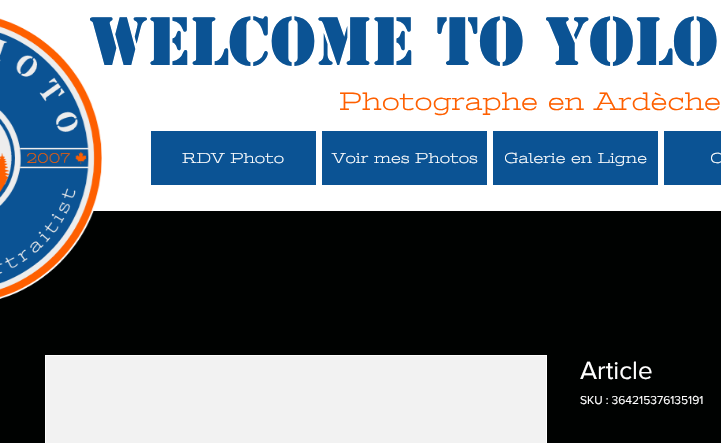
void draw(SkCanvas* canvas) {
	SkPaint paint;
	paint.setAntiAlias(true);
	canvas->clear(0xff000201);
	paint.setColor(0xffffffff);
	canvas->drawRect(SkRect::MakeXYWH(0, 0, 721, 211), paint);
	SkFont f1(fontMgr->matchFamilyStyle("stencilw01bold", SkFontStyle::Bold()), 64);
	f1.setSubpixel(true);
	paint.setColor(0xff0b5394);
	canvas->drawString("Welcome to YOLO", 89, 65, f1, paint);
	canvas->drawImageRect(SkImages::DeferredFromEncodedData(SkData::MakeFromFileName("img1.png")), SkRect::MakeXYWH(0, 18, 102, 281), SkSamplingOptions());
	SkFont f2(fontMgr->matchFamilyStyle("Stint Ultra Expanded", SkFontStyle::Normal()), 26);
	f2.setSubpixel(true);
	paint.setColor(0xfffe5f00);
	canvas->drawString("Photographe en Ardèche", 339, 110, f2, paint);
	paint.setColor(0xff0b5394);
	canvas->drawRect(SkRect::MakeXYWH(151, 131, 165, 54), paint);
	SkFont f3(fontMgr->matchFamilyStyle("Stint Ultra Expanded", SkFontStyle::Normal()), 15);
	f3.setSubpixel(true);
	paint.setColor(0xffffffff);
	canvas->drawString("RDV Photo", 182, 163, f3, paint);
	paint.setColor(0xff0b5394);
	canvas->drawRect(SkRect::MakeXYWH(322, 131, 165, 54), paint);
	paint.setColor(0xffffffff);
	canvas->drawString("Voir mes Photos", 332, 163, f3, paint);
	paint.setColor(0xff0b5394);
	canvas->drawRect(SkRect::MakeXYWH(493, 131, 165, 54), paint);
	paint.setColor(0xffffffff);
	canvas->drawString("Galerie en Ligne", 504, 163, f3, paint);
	paint.setColor(0xff0b5394);
	canvas->drawRect(SkRect::MakeXYWH(664, 131, 57, 54), paint);
	paint.setColor(0xffffffff);
	canvas->drawString("C", 710, 163, f3, paint);
	paint.setStroke(true);
	paint.setStrokeWidth(1);
	canvas->drawRect(SkRect::MakeXYWH(45.5, 355.5, 501, 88), paint);
	paint.setStroke(false);
	paint.setColor(0xfff2f2f2);
	canvas->drawRect(SkRect::MakeXYWH(46, 356, 500, 87), paint);
	SkFont f4(fontMgr->matchFamilyStyle("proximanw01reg", SkFontStyle::Normal()), 26);
	f4.setSubpixel(true);
	paint.setColor(0xffffffff);
	canvas->drawString("Article", 580, 379, f4, paint);
	SkFont f5(fontMgr->matchFamilyStyle("proximanw01reg", SkFontStyle::Normal()), 12);
	f5.setSubpixel(true);
	canvas->drawString("SKU : 364215376135191", 580, 404, f5, paint);
}
